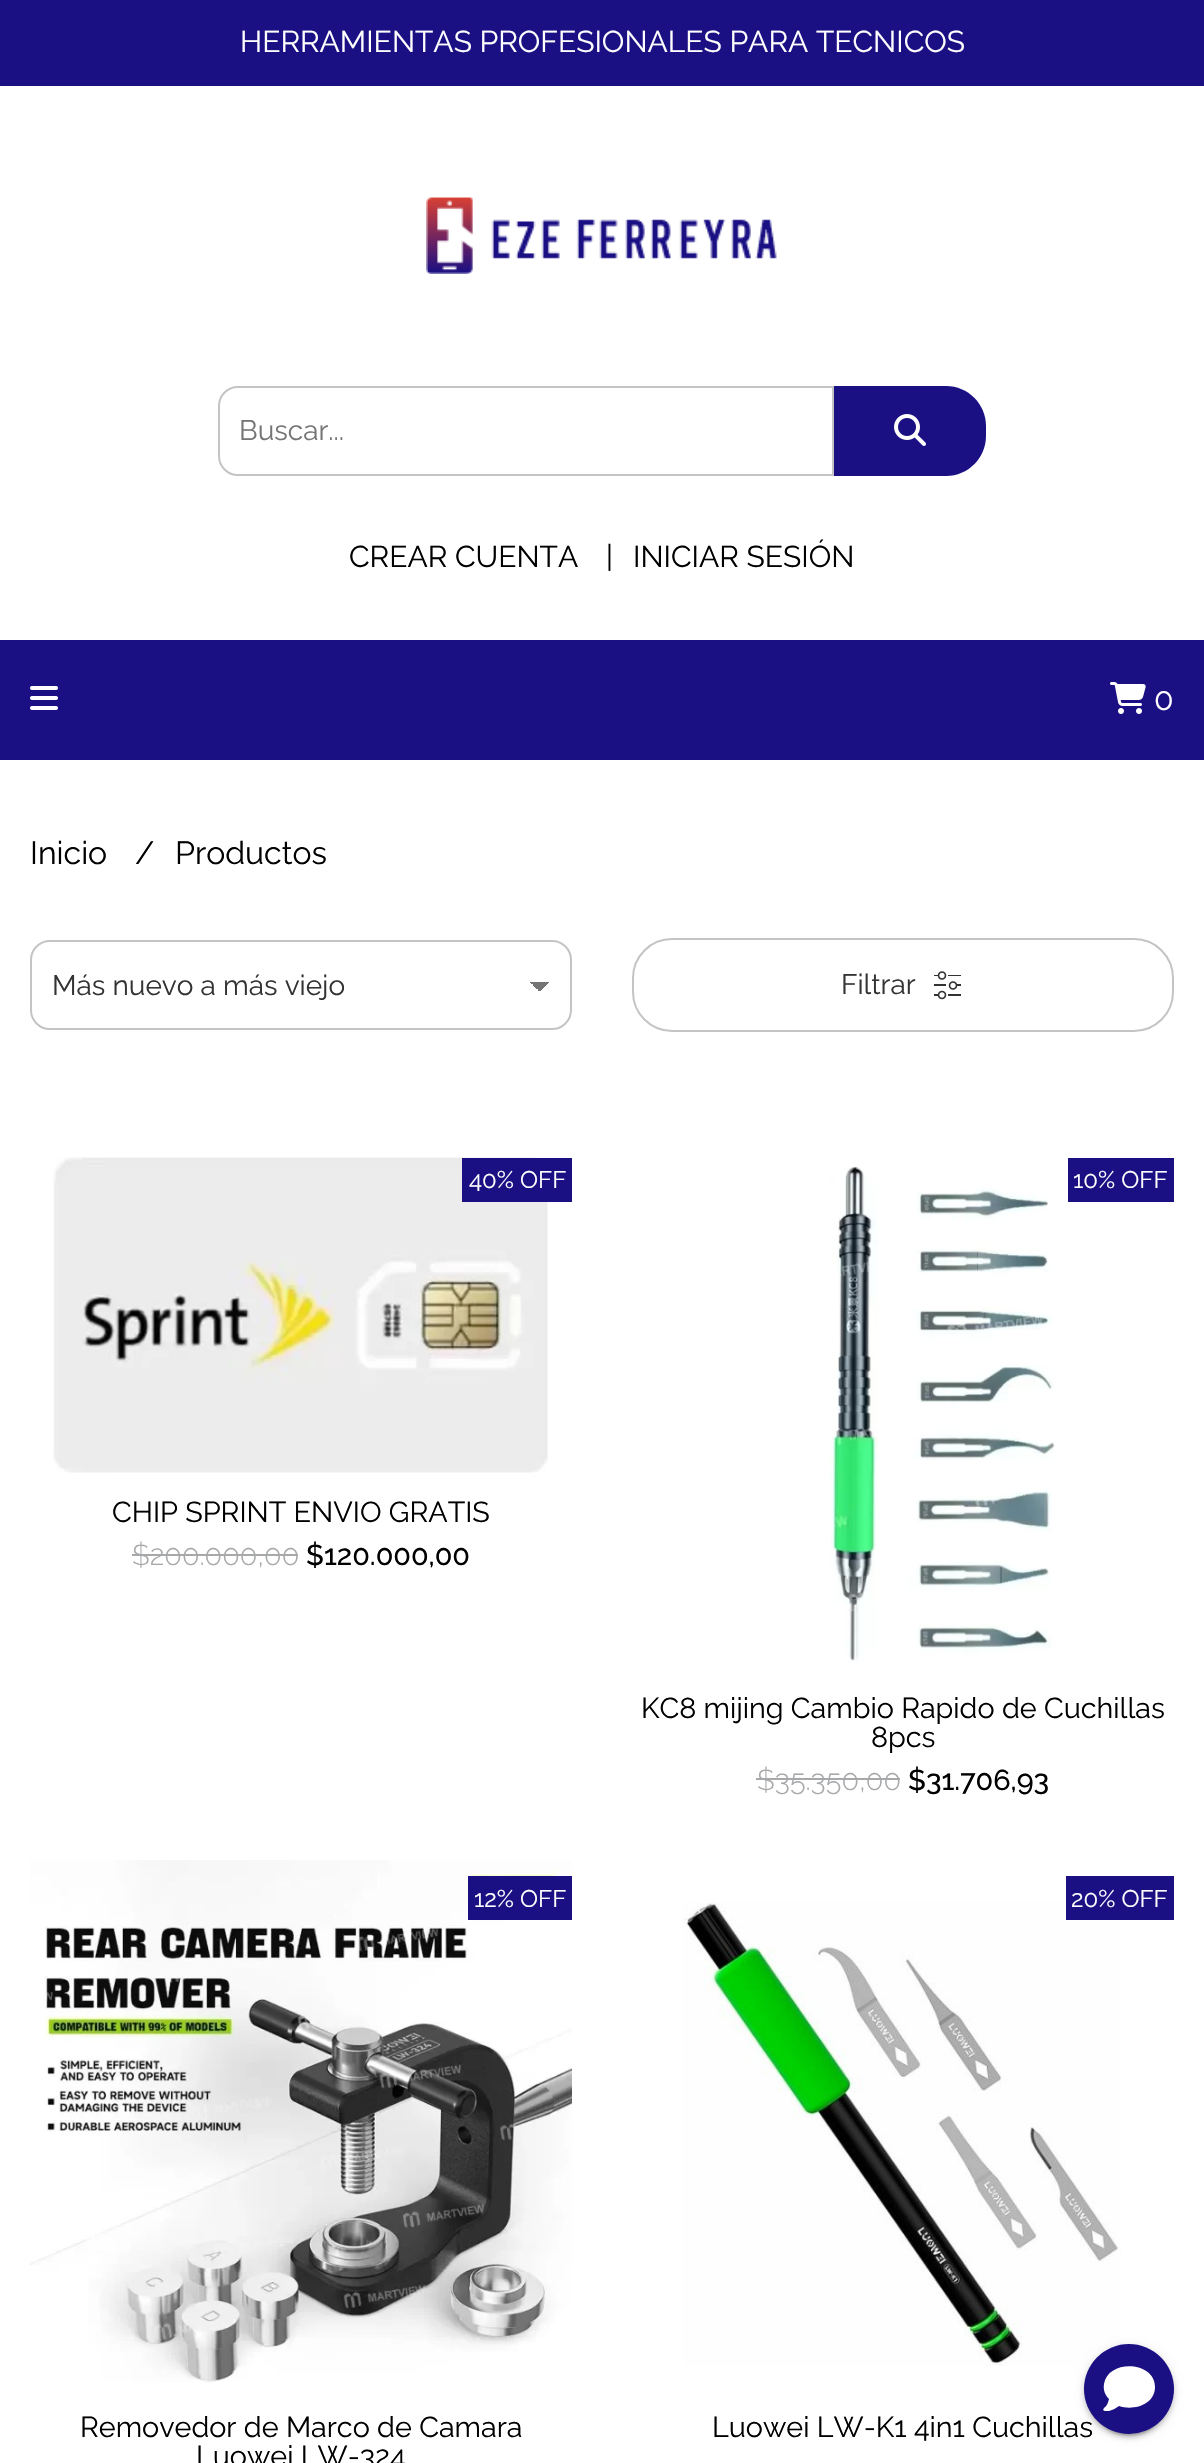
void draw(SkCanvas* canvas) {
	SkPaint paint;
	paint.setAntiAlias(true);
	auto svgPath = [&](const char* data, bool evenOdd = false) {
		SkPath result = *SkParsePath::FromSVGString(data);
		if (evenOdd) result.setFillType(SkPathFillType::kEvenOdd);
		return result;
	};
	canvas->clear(0xffffffff);
	paint.setColor(0xff1a0f83);
	canvas->drawRect(SkRect::MakeXYWH(0, 0, 1204, 86), paint);
	SkFont f1(fontMgr->matchFamilyStyle("Raleway", SkFontStyle::Normal()), 30);
	f1.setSubpixel(true);
	paint.setColor(0xffffffff);
	canvas->drawString("HERRAMIENTAS PROFESIONALES PARA TECNICOS", 240, 52, f1, paint);
	canvas->drawImageRect(SkImages::DeferredFromEncodedData(SkData::MakeFromFileName("img1.png")), SkRect::MakeXYWH(426, 197, 351, 77), SkSamplingOptions());
	paint.setStroke(true);
	paint.setStrokeWidth(2);
	paint.setColor(0xffc4c4c4);
	canvas->drawPath(svgPath("M238 387H833V475H238C227.5 475 219 466.5 219 456V406C219 395.5 227.5 387 238 387Z"), paint);
	SkFont f2(fontMgr->matchFamilyStyle("Raleway", SkFontStyle::Normal()), 28);
	f2.setSubpixel(true);
	paint.setStroke(false);
	paint.setColor(0xff757575);
	canvas->drawString("Buscar...", 239, 440, f2, paint);
	paint.setColor(0xff1a0f83);
	canvas->drawPath(svgPath("M834 386H946C968 386 986 404 986 426V436C986 458 968 476 946 476H834Z"), paint);
	canvas->drawImageRect(SkImages::DeferredFromEncodedData(SkData::MakeFromFileName("img2.png")), SkRect::MakeXYWH(894, 414, 32, 32), SkSamplingOptions());
	paint.setColor(0xff000000);
	canvas->drawString("CREAR CUENTA", 349, 567, f1, paint);
	canvas->drawString("|", 606, 567, f1, paint);
	canvas->drawString("INICIAR SESIÓN", 633, 567, f1, paint);
	paint.setColor(0xff1a0f83);
	canvas->drawRect(SkRect::MakeXYWH(0, 640, 1204, 120), paint);
	canvas->drawImageRect(SkImages::DeferredFromEncodedData(SkData::MakeFromFileName("img3.png")), SkRect::MakeXYWH(30, 686, 28, 24), SkSamplingOptions());
	canvas->drawImageRect(SkImages::DeferredFromEncodedData(SkData::MakeFromFileName("img4.png")), SkRect::MakeXYWH(1110, 682, 36, 32), SkSamplingOptions());
	SkFont f3(fontMgr->matchFamilyStyle("Raleway", SkFontStyle::Normal()), 32);
	f3.setSubpixel(true);
	paint.setColor(0xffffffff);
	canvas->drawString("0", 1154, 710, f3, paint);
	paint.setColor(0xff000000);
	canvas->drawString("Inicio", 30, 864, f3, paint);
	canvas->drawString("/", 135, 864, f3, paint);
	canvas->drawString("Productos", 175, 864, f3, paint);
	{
		const SkColor colors[] = {0xff757575, 0xffffffff};
		const float stops[] = {0.5, 0.5};
		const SkPoint ends[] = {{540, 982}, {550, 992}};
		paint.setShader(SkGradientShader::MakeLinear(ends, colors, stops, 2, SkTileMode::kClamp));
		paint.setAlpha(255);
	}
	canvas->drawRect(SkRect::MakeXYWH(540, 982, 10, 9), paint);
	{
		const SkColor colors[] = {0xffffffff, 0xff757575};
		const float stops[] = {0.5, 0.5};
		const SkPoint ends[] = {{530, 992}, {540, 982}};
		paint.setShader(SkGradientShader::MakeLinear(ends, colors, stops, 2, SkTileMode::kClamp));
		paint.setAlpha(255);
	}
	canvas->drawRect(SkRect::MakeXYWH(530, 982, 10, 9), paint);
	paint.setStroke(true);
	paint.setShader(nullptr);
	paint.setColor(0xffc4c4c4);
	canvas->drawRoundRect(SkRect::MakeXYWH(31, 941, 540, 88), 19, 19, paint);
	paint.setStroke(false);
	paint.setColor(0xff333333);
	canvas->drawString("Más nuevo a más viejo", 52, 995, f2, paint);
	paint.setStroke(true);
	paint.setColor(0xffc4c4c4);
	canvas->drawRoundRect(SkRect::MakeXYWH(633, 939, 540, 92), 39, 39, paint);
	paint.setStroke(false);
	paint.setColor(0xff333333);
	canvas->drawString("Filtrar", 841, 994, f2, paint);
	canvas->drawImageRect(SkImages::DeferredFromEncodedData(SkData::MakeFromFileName("img5.png")), SkRect::MakeXYWH(934, 971, 27, 29), SkSamplingOptions());
	canvas->drawImageRect(SkImages::DeferredFromEncodedData(SkData::MakeFromFileName("img6.png")), SkRect::MakeXYWH(53, 1157, 495, 316), SkSamplingOptions());
	paint.setColor(0xff1a0f83);
	canvas->drawRect(SkRect::MakeXYWH(462, 1158, 110, 44), paint);
	SkFont f4(fontMgr->matchFamilyStyle("Raleway", SkFontStyle::Normal()), 24);
	f4.setSubpixel(true);
	paint.setColor(0xffffffff);
	canvas->drawString("40% OFF", 469, 1188, f4, paint);
	SkFont f5(fontMgr->matchFamilyStyle("Raleway", SkFontStyle::Normal()), 28.75);
	f5.setSubpixel(true);
	paint.setColor(0xff000000);
	canvas->drawString("CHIP SPRINT ENVIO GRATIS", 112, 1522, f5, paint);
	SkFont f6(fontMgr->matchFamilyStyle("Raleway", SkFontStyle(300, SkFontStyle::kNormal_Width, SkFontStyle::kUpright_Slant)), 28.75);
	f6.setSubpixel(true);
	paint.setColor(0xffa7a8aa);
	canvas->drawString("$200.000,00", 132, 1565, f6, paint);
	canvas->drawRect(SkRect::MakeXYWH(132, 1554, 166, 2), paint);
	SkFont f7(fontMgr->matchFamilyStyle("Raleway", SkFontStyle(500, SkFontStyle::kNormal_Width, SkFontStyle::kUpright_Slant)), 28.75);
	f7.setSubpixel(true);
	paint.setColor(0xff000000);
	canvas->drawString("$120.000,00", 306, 1565, f7, paint);
	canvas->drawImageRect(SkImages::DeferredFromEncodedData(SkData::MakeFromFileName("img7.png")), SkRect::MakeXYWH(830, 1166, 225, 496), SkSamplingOptions());
	paint.setColor(0xff1a0f83);
	canvas->drawRect(SkRect::MakeXYWH(1068, 1158, 106, 44), paint);
	paint.setColor(0xffffffff);
	canvas->drawString("10% OFF", 1073, 1188, f4, paint);
	paint.setColor(0xff000000);
	canvas->drawString("KC8 mijing Cambio Rapido de Cuchillas", 641, 1718, f5, paint);
	canvas->drawString("8pcs", 871, 1747, f5, paint);
	paint.setColor(0xffa7a8aa);
	canvas->drawString("$35.350,00", 757, 1790, f6, paint);
	canvas->drawRect(SkRect::MakeXYWH(756, 1778, 144, 2), paint);
	paint.setColor(0xff000000);
	canvas->drawString("$31.706,93", 908, 1790, f7, paint);
	canvas->drawImageRect(SkImages::DeferredFromEncodedData(SkData::MakeFromFileName("img8.png")), SkRect::MakeXYWH(30, 1860, 542, 523), SkSamplingOptions());
	paint.setColor(0xff1a0f83);
	canvas->drawRect(SkRect::MakeXYWH(468, 1876, 104, 44), paint);
	paint.setColor(0xffffffff);
	canvas->drawString("12% OFF", 474, 1907, f4, paint);
	paint.setColor(0xff000000);
	canvas->drawString("Removedor de Marco de Camara", 80, 2437, f5, paint);
	canvas->drawString("Luowei LW-324", 196, 2466, f5, paint);
	canvas->drawImageRect(SkImages::DeferredFromEncodedData(SkData::MakeFromFileName("img9.png")), SkRect::MakeXYWH(683, 1902, 438, 464), SkSamplingOptions());
	paint.setColor(0xff1a0f83);
	canvas->drawRect(SkRect::MakeXYWH(1066, 1876, 108, 44), paint);
	paint.setColor(0xffffffff);
	canvas->drawString("20% OFF", 1071, 1907, f4, paint);
	paint.setColor(0xff000000);
	canvas->drawString("Luowei LW-K1 4in1 Cuchillas", 712, 2437, f5, paint);
	paint.setColor(0x33000000);
	paint.setMaskFilter(SkMaskFilter::MakeBlur(kNormal_SkBlurStyle, 1));
	canvas->drawRoundRect(SkRect::MakeXYWH(1088, 2354, 82, 82), 41, 41, paint);
	paint.setMaskFilter(nullptr);
	paint.setColor(0x1f000000);
	paint.setMaskFilter(SkMaskFilter::MakeBlur(kNormal_SkBlurStyle, 5));
	canvas->drawRoundRect(SkRect::MakeXYWH(1084, 2346, 90, 90), 45, 45, paint);
	paint.setMaskFilter(nullptr);
	paint.setColor(0x24000000);
	paint.setMaskFilter(SkMaskFilter::MakeBlur(kNormal_SkBlurStyle, 2));
	canvas->drawRoundRect(SkRect::MakeXYWH(1084, 2348, 90, 90), 45, 45, paint);
	paint.setMaskFilter(nullptr);
	paint.setColor(0xff1a0f83);
	canvas->drawCircle(1129, 2389, 45, paint);
	paint.setColor(0xffffffff);
	canvas->drawPath(svgPath("M1155 2387C1155 2405 1133 2411 1119 2406C1116 2408 1113 2410 1109 2411C1108 2411 1101 2412 1104 2408C1107 2406 1108 2403 1109 2399C1105 2395 1103 2390 1104 2384C1108 2359 1155 2361 1155 2387Z"), paint);
}
